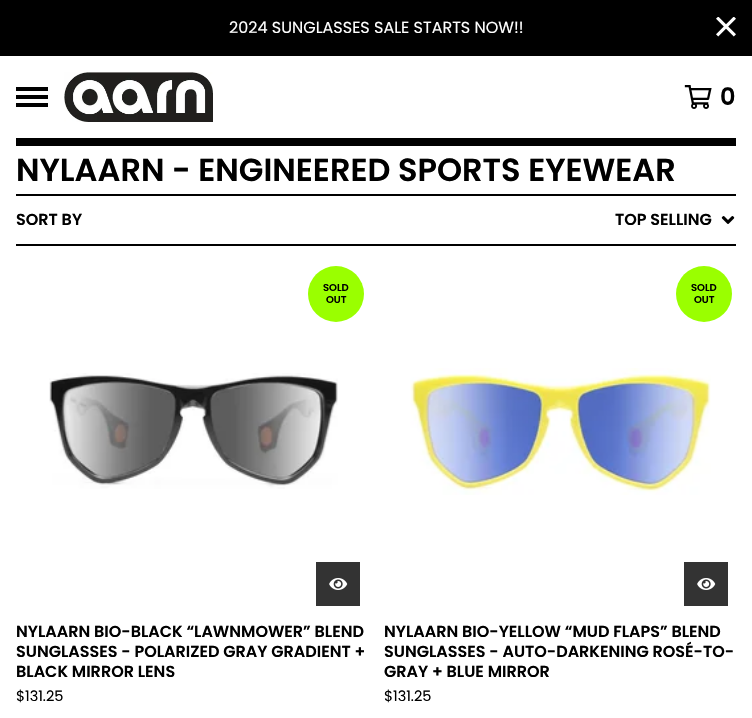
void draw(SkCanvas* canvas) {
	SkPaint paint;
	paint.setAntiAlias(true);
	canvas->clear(0xffffffff);
	paint.setColor(0xff000000);
	canvas->drawRect(SkRect::MakeXYWH(0, 0, 752, 56), paint);
	SkFont f1(fontMgr->matchFamilyStyle("Poppins", SkFontStyle::Normal()), 16);
	f1.setSubpixel(true);
	paint.setColor(0xffffffff);
	canvas->drawString("2024 SUNGLASSES SALE STARTS NOW!!", 229, 33, f1, paint);
	canvas->drawImageRect(SkImages::DeferredFromEncodedData(SkData::MakeFromFileName("img1.png")), SkRect::MakeXYWH(716, 17, 20, 20), SkSamplingOptions());
	paint.setColor(0xff000000);
	canvas->drawRect(SkRect::MakeXYWH(16, 138, 720, 8), paint);
	canvas->drawRect(SkRect::MakeXYWH(16, 95, 32, 4), paint);
	canvas->drawRect(SkRect::MakeXYWH(16, 87, 32, 4), paint);
	canvas->drawRect(SkRect::MakeXYWH(16, 103, 32, 4), paint);
	canvas->drawImageRect(SkImages::DeferredFromEncodedData(SkData::MakeFromFileName("img2.png")), SkRect::MakeXYWH(64, 72, 149, 50), SkSamplingOptions());
	canvas->drawImageRect(SkImages::DeferredFromEncodedData(SkData::MakeFromFileName("img3.png")), SkRect::MakeXYWH(684, 85, 28, 24), SkSamplingOptions());
	SkFont f2(fontMgr->matchFamilyStyle("Poppins", SkFontStyle(600, SkFontStyle::kNormal_Width, SkFontStyle::kUpright_Slant)), 24);
	f2.setSubpixel(true);
	canvas->drawString("0", 720, 105, f2, paint);
	canvas->drawRect(SkRect::MakeXYWH(16, 244, 720, 2), paint);
	canvas->drawRect(SkRect::MakeXYWH(16, 194, 720, 2), paint);
	SkFont f3(fontMgr->matchFamilyStyle("Poppins", SkFontStyle(600, SkFontStyle::kNormal_Width, SkFontStyle::kUpright_Slant)), 32);
	f3.setSubpixel(true);
	canvas->drawString("NYLAARN - ENGINEERED SPORTS EYEWEAR", 16, 181, f3, paint);
	SkFont f4(fontMgr->matchFamilyStyle("Poppins", SkFontStyle(600, SkFontStyle::kNormal_Width, SkFontStyle::kUpright_Slant)), 16);
	f4.setSubpixel(true);
	canvas->drawString("SORT BY", 16, 225, f4, paint);
	canvas->drawString("TOP SELLING", 615, 225, f4, paint);
	canvas->drawImageRect(SkImages::DeferredFromEncodedData(SkData::MakeFromFileName("img4.png")), SkRect::MakeXYWH(721, 216, 14, 8), SkSamplingOptions());
	paint.setColor(0xff9aff00);
	canvas->drawCircle(336, 294, 28, paint);
	SkFont f5(fontMgr->matchFamilyStyle("Poppins", SkFontStyle(600, SkFontStyle::kNormal_Width, SkFontStyle::kUpright_Slant)), 10);
	f5.setSubpixel(true);
	paint.setColor(0xff000000);
	canvas->drawString("SOLD", 323, 291, f5, paint);
	canvas->drawString("OUT", 326, 303, f5, paint);
	canvas->drawImageRect(SkImages::DeferredFromEncodedData(SkData::MakeFromFileName("img5.png")), SkRect::MakeXYWH(49, 373, 289, 116), SkSamplingOptions());
	paint.setColor(0xff333333);
	canvas->drawRect(SkRect::MakeXYWH(316, 562, 44, 44), paint);
	canvas->drawImageRect(SkImages::DeferredFromEncodedData(SkData::MakeFromFileName("img6.png")), SkRect::MakeXYWH(329, 578, 19, 12), SkSamplingOptions());
	paint.setColor(0xff000000);
	canvas->drawString("NYLAARN BIO-BLACK “LAWNMOWER” BLEND", 16, 637, f4, paint);
	canvas->drawString("SUNGLASSES - POLARIZED GRAY GRADIENT +", 16, 657, f4, paint);
	canvas->drawString("BLACK MIRROR LENS", 16, 677, f4, paint);
	SkFont f6(fontMgr->matchFamilyStyle("Poppins", SkFontStyle::Normal()), 14.5);
	f6.setSubpixel(true);
	canvas->drawString("$131.25", 16, 701, f6, paint);
	paint.setColor(0xff9aff00);
	canvas->drawCircle(704, 294, 28, paint);
	paint.setColor(0xff000000);
	canvas->drawString("SOLD", 691, 291, f5, paint);
	canvas->drawString("OUT", 694, 303, f5, paint);
	canvas->drawImageRect(SkImages::DeferredFromEncodedData(SkData::MakeFromFileName("img7.png")), SkRect::MakeXYWH(410, 368, 301, 127), SkSamplingOptions());
	paint.setColor(0xff333333);
	canvas->drawRect(SkRect::MakeXYWH(684, 562, 44, 44), paint);
	canvas->drawImageRect(SkImages::DeferredFromEncodedData(SkData::MakeFromFileName("img6.png")), SkRect::MakeXYWH(697, 578, 19, 12), SkSamplingOptions());
	paint.setColor(0xff000000);
	canvas->drawString("NYLAARN BIO-YELLOW “MUD FLAPS” BLEND", 384, 637, f4, paint);
	canvas->drawString("SUNGLASSES - AUTO-DARKENING ROSÉ-TO-", 384, 657, f4, paint);
	canvas->drawString("GRAY + BLUE MIRROR", 384, 677, f4, paint);
	canvas->drawString("$131.25", 384, 701, f6, paint);
}
